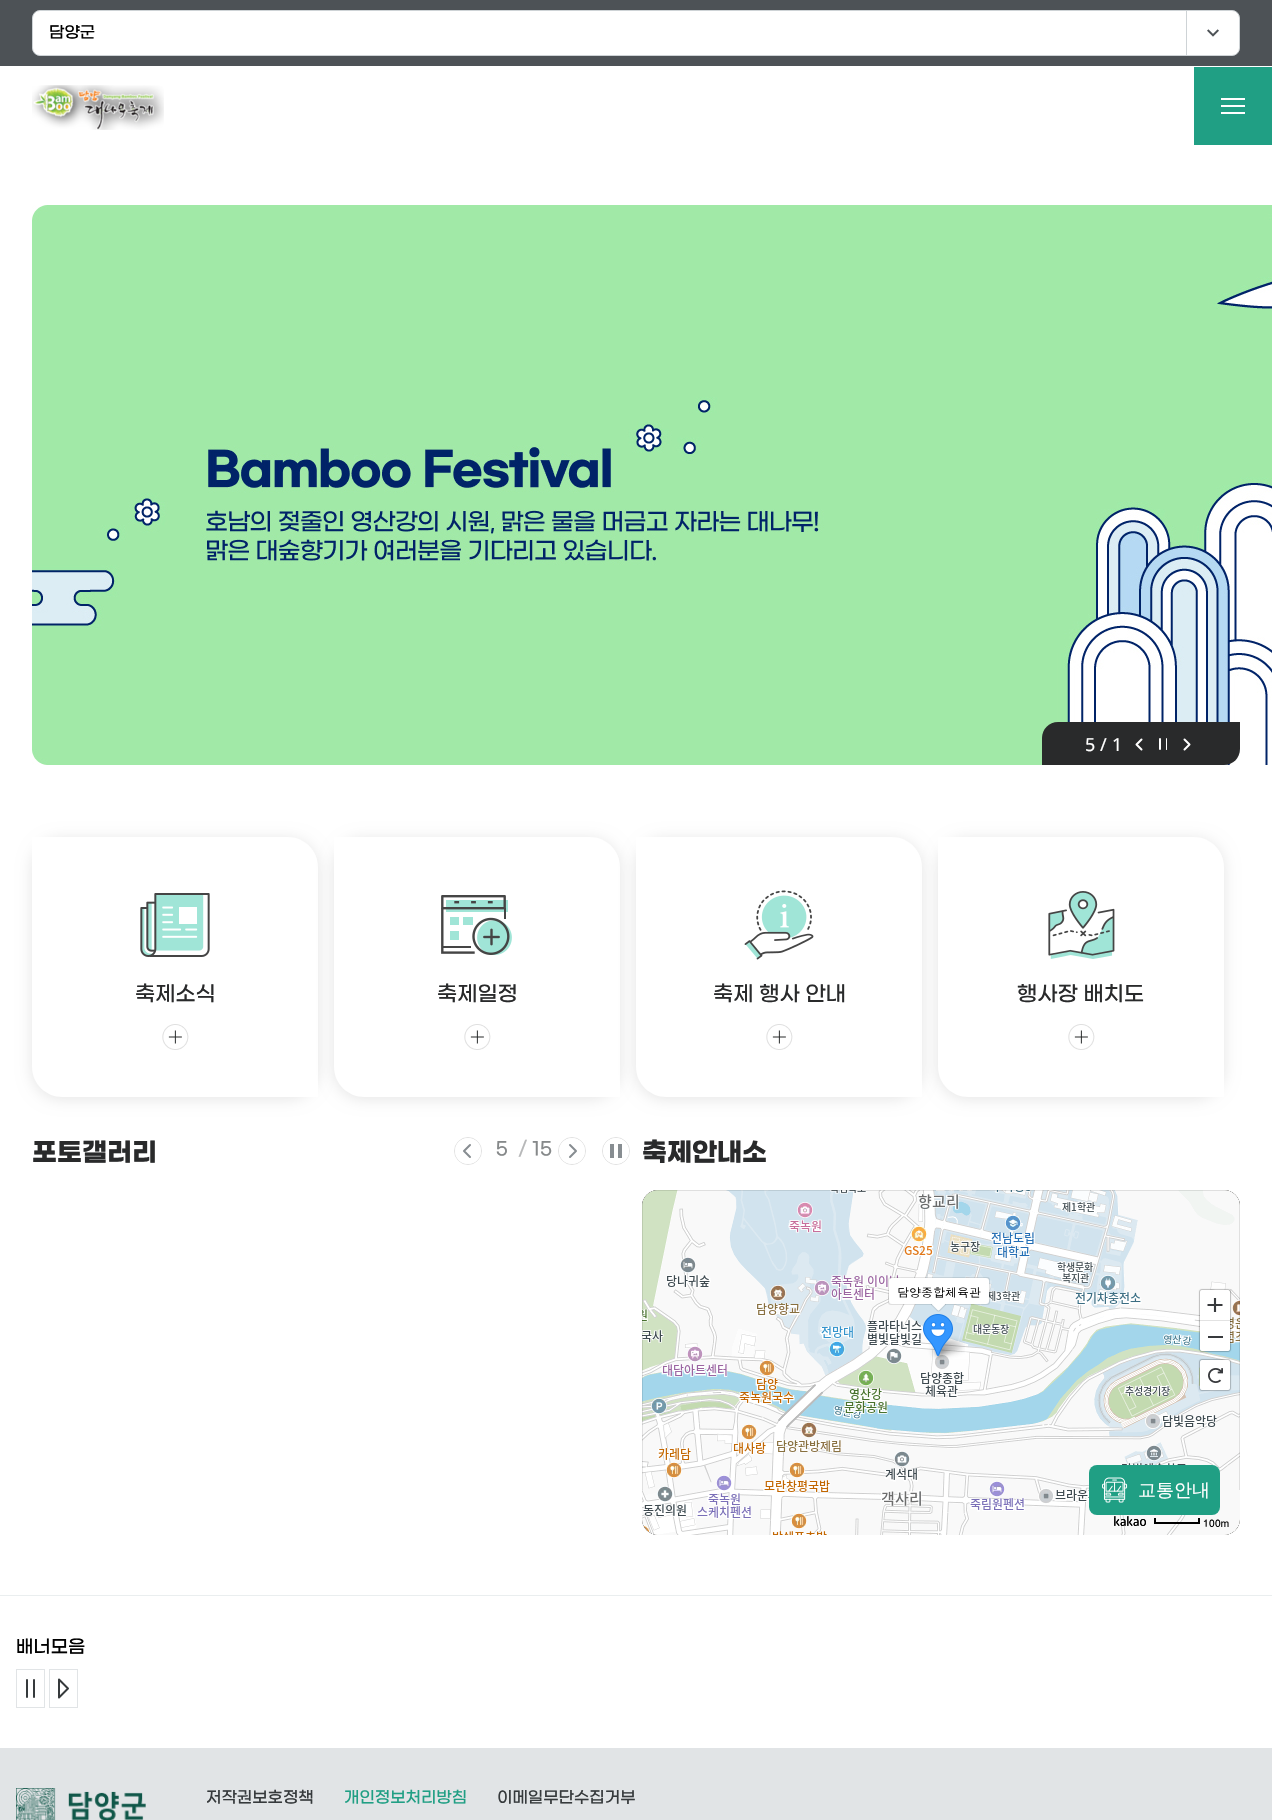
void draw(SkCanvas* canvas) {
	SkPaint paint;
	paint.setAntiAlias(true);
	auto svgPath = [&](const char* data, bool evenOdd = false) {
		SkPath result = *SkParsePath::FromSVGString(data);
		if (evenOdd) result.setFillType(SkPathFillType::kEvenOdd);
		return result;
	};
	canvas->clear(0xffffffff);
	paint.setColor(0xff4d5256);
	canvas->drawRect(SkRect::MakeXYWH(0, 0, 1272, 66), paint);
	paint.setColor(0xffffffff);
	canvas->drawRoundRect(SkRect::MakeXYWH(32.5, 10.5, 1207, 45), 7.5, 7.5, paint);
	paint.setStroke(true);
	paint.setStrokeWidth(1);
	paint.setColor(0xffced3d6);
	canvas->drawRoundRect(SkRect::MakeXYWH(32.5, 10.5, 1207, 45), 7.5, 7.5, paint);
	paint.setStroke(false);
	canvas->drawRect(SkRect::MakeXYWH(1186, 11, 1, 44), paint);
	SkFont f1(fontMgr->matchFamilyStyle("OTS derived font", SkFontStyle(500, SkFontStyle::kNormal_Width, SkFontStyle::kUpright_Slant)), 16);
	f1.setSubpixel(true);
	paint.setColor(0xff000000);
	canvas->drawString("담양군", 49, 37, f1, paint);
	canvas->drawImageRect(SkImages::DeferredFromEncodedData(SkData::MakeFromFileName("img1.png")), SkRect::MakeXYWH(1207, 29, 12, 8), SkSamplingOptions());
	canvas->drawImageRect(SkImages::DeferredFromEncodedData(SkData::MakeFromFileName("img2.png")), SkRect::MakeXYWH(32, 85, 132, 45), SkSamplingOptions());
	paint.setColor(0xff209f84);
	canvas->drawRect(SkRect::MakeXYWH(1194, 67, 78, 78), paint);
	paint.setColor(0xffffffff);
	canvas->drawRect(SkRect::MakeXYWH(1221, 98, 24, 2), paint);
	canvas->drawRect(SkRect::MakeXYWH(1221, 105, 24, 2), paint);
	canvas->drawRect(SkRect::MakeXYWH(1221, 112, 24, 2), paint);
	canvas->drawImageRect(SkImages::DeferredFromEncodedData(SkData::MakeFromFileName("img3.png")), SkRect::MakeXYWH(32, 205, 1240, 560), SkSamplingOptions());
	paint.setColor(0xff292a2b);
	canvas->drawPath(svgPath("M1058 722H1240V749C1240 758 1233 765 1224 765H1042V738C1042 729 1049 722 1058 722Z"), paint);
	SkFont f2(fontMgr->matchFamilyStyle("Noto Sans", SkFontStyle::Normal()), 18);
	f2.setSubpixel(true);
	paint.setColor(0xffffffff);
	canvas->drawString("5", 1085, 751, f2, paint);
	canvas->drawString("/", 1100, 751, f2, paint);
	canvas->drawString("1", 1112, 751, f2, paint);
	paint.setStroke(true);
	paint.setStrokeWidth(2);
	paint.setStrokeCap(SkPaint::kRound_Cap);
	paint.setStrokeJoin(SkPaint::kRound_Join);
	canvas->drawPath(svgPath("M1141.5 749.5L1136.5 744.5L1141.5 739.5"), paint);
	paint.setStroke(false);
	canvas->drawRoundRect(SkRect::MakeXYWH(1159, 738, 2, 12), 1, 1, paint);
	canvas->drawRoundRect(SkRect::MakeXYWH(1166, 738, 1, 12), 0.5, 0.5, paint);
	paint.setStroke(true);
	canvas->drawPath(svgPath("M1184.5 749.5L1189.5 744.5L1184.5 739.5"), paint);
	paint.setStroke(false);
	paint.setColor(0x1a000000);
	paint.setMaskFilter(SkMaskFilter::MakeBlur(kNormal_SkBlurStyle, 7.5));
	canvas->drawRoundRect(SkRect::MakeXYWH(32, 839, 286, 260), 30, 30, paint);
	paint.setMaskFilter(nullptr);
	paint.setColor(0xffffffff);
	canvas->drawPath(svgPath("M32 837H288C304.5 837 318 850.5 318 867V1097H62C45.5 1097 32 1083.5 32 1067Z"), paint);
	canvas->drawImageRect(SkImages::DeferredFromEncodedData(SkData::MakeFromFileName("img4.png")), SkRect::MakeXYWH(140, 893, 70, 64), SkSamplingOptions());
	SkFont f3(fontMgr->matchFamilyStyle("OTS derived font", SkFontStyle(500, SkFontStyle::kNormal_Width, SkFontStyle::kUpright_Slant)), 21);
	f3.setSubpixel(true);
	paint.setColor(0xff292a2b);
	canvas->drawString("축제소식", 135, 1000, f3, paint);
	canvas->drawImageRect(SkImages::DeferredFromEncodedData(SkData::MakeFromFileName("img5.png")), SkRect::MakeXYWH(162, 1024, 27, 26), SkSamplingOptions());
	paint.setColor(0x1a000000);
	paint.setMaskFilter(SkMaskFilter::MakeBlur(kNormal_SkBlurStyle, 7.5));
	canvas->drawRoundRect(SkRect::MakeXYWH(334, 839, 286, 260), 30, 30, paint);
	paint.setMaskFilter(nullptr);
	paint.setColor(0xffffffff);
	canvas->drawPath(svgPath("M334 837H590C606.5 837 620 850.5 620 867V1097H364C347.5 1097 334 1083.5 334 1067Z"), paint);
	canvas->drawImageRect(SkImages::DeferredFromEncodedData(SkData::MakeFromFileName("img6.png")), SkRect::MakeXYWH(441, 895, 71, 60), SkSamplingOptions());
	paint.setColor(0xff292a2b);
	canvas->drawString("축제일정", 437, 1000, f3, paint);
	canvas->drawImageRect(SkImages::DeferredFromEncodedData(SkData::MakeFromFileName("img5.png")), SkRect::MakeXYWH(464, 1024, 27, 26), SkSamplingOptions());
	paint.setColor(0x1a000000);
	paint.setMaskFilter(SkMaskFilter::MakeBlur(kNormal_SkBlurStyle, 7.5));
	canvas->drawRoundRect(SkRect::MakeXYWH(636, 839, 286, 260), 30, 30, paint);
	paint.setMaskFilter(nullptr);
	paint.setColor(0xffffffff);
	canvas->drawPath(svgPath("M636 837H892C908.5 837 922 850.5 922 867V1097H666C649.5 1097 636 1083.5 636 1067Z"), paint);
	canvas->drawImageRect(SkImages::DeferredFromEncodedData(SkData::MakeFromFileName("img7.png")), SkRect::MakeXYWH(744, 890, 70, 70), SkSamplingOptions());
	paint.setColor(0xff292a2b);
	canvas->drawString("축제 행사 안내", 713, 1000, f3, paint);
	canvas->drawImageRect(SkImages::DeferredFromEncodedData(SkData::MakeFromFileName("img5.png")), SkRect::MakeXYWH(766, 1024, 27, 26), SkSamplingOptions());
	paint.setColor(0x1a000000);
	paint.setMaskFilter(SkMaskFilter::MakeBlur(kNormal_SkBlurStyle, 7.5));
	canvas->drawRoundRect(SkRect::MakeXYWH(938, 839, 286, 260), 30, 30, paint);
	paint.setMaskFilter(nullptr);
	paint.setColor(0xffffffff);
	canvas->drawPath(svgPath("M938 837H1194C1210.5 837 1224 850.5 1224 867V1097H968C951.5 1097 938 1083.5 938 1067Z"), paint);
	canvas->drawImageRect(SkImages::DeferredFromEncodedData(SkData::MakeFromFileName("img8.png")), SkRect::MakeXYWH(1048, 891, 67, 68), SkSamplingOptions());
	paint.setColor(0xff292a2b);
	canvas->drawString("행사장 배치도", 1017, 1000, f3, paint);
	canvas->drawImageRect(SkImages::DeferredFromEncodedData(SkData::MakeFromFileName("img5.png")), SkRect::MakeXYWH(1068, 1024, 27, 26), SkSamplingOptions());
	SkFont f4(fontMgr->matchFamilyStyle("OTS derived font", SkFontStyle::Bold()), 26);
	f4.setSubpixel(true);
	canvas->drawString("포토갤러리", 32, 1160, f4, paint);
	paint.setStroke(true);
	paint.setStrokeWidth(1);
	paint.setStrokeCap(SkPaint::kButt_Cap);
	paint.setStrokeJoin(SkPaint::kMiter_Join);
	paint.setColor(0xffe0e0e0);
	canvas->drawCircle(468, 1151, 13.5, paint);
	paint.setStroke(false);
	paint.setColor(0xffffffff);
	canvas->drawCircle(468, 1151, 13, paint);
	paint.setStroke(true);
	paint.setStrokeWidth(2);
	paint.setStrokeCap(SkPaint::kRound_Cap);
	paint.setStrokeJoin(SkPaint::kRound_Join);
	paint.setColor(0xff878d91);
	canvas->drawPath(svgPath("M470 1157L464 1151L470 1145"), paint);
	paint.setStrokeWidth(1);
	paint.setStrokeCap(SkPaint::kButt_Cap);
	paint.setStrokeJoin(SkPaint::kMiter_Join);
	paint.setColor(0xffe0e0e0);
	canvas->drawCircle(572, 1151, 13.5, paint);
	paint.setStroke(false);
	paint.setColor(0xffffffff);
	canvas->drawCircle(572, 1151, 13, paint);
	paint.setStroke(true);
	paint.setStrokeWidth(2);
	paint.setStrokeCap(SkPaint::kRound_Cap);
	paint.setStrokeJoin(SkPaint::kRound_Join);
	paint.setColor(0xff878d91);
	canvas->drawPath(svgPath("M570 1157L576 1151L570 1145"), paint);
	paint.setStrokeWidth(1);
	paint.setStrokeCap(SkPaint::kButt_Cap);
	paint.setStrokeJoin(SkPaint::kMiter_Join);
	paint.setColor(0xffe0e0e0);
	canvas->drawCircle(616, 1151, 13.5, paint);
	canvas->drawImageRect(SkImages::DeferredFromEncodedData(SkData::MakeFromFileName("img9.png")), SkRect::MakeXYWH(603, 1138, 26, 26), SkSamplingOptions());
	SkFont f5(fontMgr->matchFamilyStyle("OTS derived font", SkFontStyle(500, SkFontStyle::kNormal_Width, SkFontStyle::kUpright_Slant)), 18);
	f5.setSubpixel(true);
	paint.setStroke(false);
	paint.setColor(0xff86898a);
	canvas->drawString("5", 496, 1154, f5, paint);
	paint.setColor(0xffb7b8b9);
	canvas->drawString("/", 518, 1154, f5, paint);
	paint.setColor(0xff86898a);
	canvas->drawString("15", 532, 1154, f5, paint);
	paint.setColor(0xff292a2b);
	canvas->drawString("축제안내소", 642, 1160, f4, paint);
	paint.setColor(0xff000000);
	canvas->drawRoundRect(SkRect::MakeXYWH(642, 1190, 598, 345), 16, 16, paint);
	canvas->drawImageRect(SkImages::DeferredFromEncodedData(SkData::MakeFromFileName("img10.png")), SkRect::MakeXYWH(642, 1190, 598, 345), SkSamplingOptions());
	canvas->drawImageRect(SkImages::DeferredFromEncodedData(SkData::MakeFromFileName("img11.png")), SkRect::MakeXYWH(642, 1190, 235, 169), SkSamplingOptions());
	canvas->drawImageRect(SkImages::DeferredFromEncodedData(SkData::MakeFromFileName("img12.png")), SkRect::MakeXYWH(877, 1190, 256, 169), SkSamplingOptions());
	canvas->drawImageRect(SkImages::DeferredFromEncodedData(SkData::MakeFromFileName("img13.png")), SkRect::MakeXYWH(1133, 1190, 107, 169), SkSamplingOptions());
	canvas->save();
	canvas->clipPath(svgPath("M658 1190H1224C1233 1190 1240 1197 1240 1206V1519C1240 1528 1233 1535 1224 1535H658C649 1535 642 1528 642 1519V1206C642 1197 649 1190 658 1190Z"), true);
	paint.setColor(0x1a000000);
	canvas->drawRect(SkRect::MakeXYWH(653, 1190, 576, 1), paint);
	canvas->restore();
	canvas->drawImageRect(SkImages::DeferredFromEncodedData(SkData::MakeFromFileName("img14.png")), SkRect::MakeXYWH(642, 1359, 235, 176), SkSamplingOptions());
	canvas->save();
	canvas->clipPath(svgPath("M658 1190H1224C1233 1190 1240 1197 1240 1206V1519C1240 1528 1233 1535 1224 1535H658C649 1535 642 1528 642 1519V1206C642 1197 649 1190 658 1190Z"), true);
	canvas->drawRect(SkRect::MakeXYWH(642, 1201, 1, 289), paint);
	canvas->restore();
	canvas->drawImageRect(SkImages::DeferredFromEncodedData(SkData::MakeFromFileName("img15.png")), SkRect::MakeXYWH(877, 1359, 256, 176), SkSamplingOptions());
	canvas->drawImageRect(SkImages::DeferredFromEncodedData(SkData::MakeFromFileName("img16.png")), SkRect::MakeXYWH(1133, 1359, 107, 176), SkSamplingOptions());
	canvas->drawPath(svgPath("M891 1277H987C989 1277 990 1278 990 1280V1302C990 1304 989 1305 987 1305H891C889 1305 888 1304 888 1302V1280C888 1278 889 1277 891 1277Z"), paint);
	paint.setColor(0xffffffff);
	canvas->drawRoundRect(SkRect::MakeXYWH(889, 1278, 100, 26), 3, 3, paint);
	SkFont f6(fontMgr->matchFamilyStyle("Dotum", SkFontStyle::Normal()), 12);
	f6.setSubpixel(true);
	paint.setColor(0xff000000);
	canvas->drawString("담양종합체육관", 897, 1297, f6, paint);
	canvas->drawImageRect(SkImages::DeferredFromEncodedData(SkData::MakeFromFileName("img17.png")), SkRect::MakeXYWH(931, 1304, 15, 8), SkSamplingOptions());
	canvas->drawImageRect(SkImages::DeferredFromEncodedData(SkData::MakeFromFileName("img18.png")), SkRect::MakeXYWH(923, 1314, 42, 46), SkSamplingOptions());
	canvas->drawImageRect(SkImages::DeferredFromEncodedData(SkData::MakeFromFileName("img19.png")), SkRect::MakeXYWH(1114, 1516, 32, 10), SkSamplingOptions());
	canvas->drawRect(SkRect::MakeXYWH(1198, 1518, 2, 6), paint);
	canvas->drawRect(SkRect::MakeXYWH(1154, 1522, 46, 2), paint);
	canvas->drawRect(SkRect::MakeXYWH(1154, 1518, 2, 6), paint);
	SkFont f7(fontMgr->matchFamilyStyle("Dotum", SkFontStyle::Bold()), 10);
	f7.setSubpixel(true);
	canvas->drawString("100m", 1203, 1527, f7, paint);
	canvas->save();
	canvas->clipPath(svgPath("M658 1190H1224C1233 1190 1240 1197 1240 1206V1519C1240 1528 1233 1535 1224 1535H658C649 1535 642 1528 642 1519V1206C642 1197 649 1190 658 1190Z"), true);
	paint.setColor(0x1a000000);
	canvas->drawRect(SkRect::MakeXYWH(1239, 1201, 1, 289), paint);
	canvas->restore();
	canvas->drawImageRect(SkImages::DeferredFromEncodedData(SkData::MakeFromFileName("img20.png")), SkRect::MakeXYWH(1198, 1288, 34, 104), SkSamplingOptions());
	canvas->drawImageRect(SkImages::DeferredFromEncodedData(SkData::MakeFromFileName("img21.png")), SkRect::MakeXYWH(1207, 1298, 16, 14), SkSamplingOptions());
	paint.setColor(0xff383a3d);
	canvas->drawRect(SkRect::MakeXYWH(1208, 1336, 15, 2), paint);
	canvas->drawImageRect(SkImages::DeferredFromEncodedData(SkData::MakeFromFileName("img22.png")), SkRect::MakeXYWH(1208, 1368, 15, 15), SkSamplingOptions());
	paint.setColor(0xff209f84);
	canvas->drawRoundRect(SkRect::MakeXYWH(1089, 1465, 131, 50), 8, 8, paint);
	canvas->drawImageRect(SkImages::DeferredFromEncodedData(SkData::MakeFromFileName("img23.png")), SkRect::MakeXYWH(1102, 1477, 26, 26), SkSamplingOptions());
	SkFont f8(fontMgr->matchFamilyStyle("WenQuanYi Zen Hei", SkFontStyle(500, SkFontStyle::kNormal_Width, SkFontStyle::kUpright_Slant)), 18);
	f8.setSubpixel(true);
	paint.setColor(0xffffffff);
	canvas->drawString("교통안내", 1138, 1496, f8, paint);
	paint.setColor(0xffe1e4e6);
	canvas->drawRect(SkRect::MakeXYWH(0, 1748, 1272, 72), paint);
	paint.setColor(0xffeaeeef);
	canvas->drawRect(SkRect::MakeXYWH(0, 1595, 1272, 1), paint);
	paint.setColor(0xff000000);
	canvas->drawString("배너모음", 16, 1652, f5, paint);
	paint.setStroke(true);
	paint.setColor(0xffe1e4e6);
	canvas->drawRect(SkRect::MakeXYWH(16.5, 1669.5, 28, 38), paint);
	paint.setStroke(false);
	paint.setColor(0xff363a3c);
	canvas->drawRoundRect(SkRect::MakeXYWH(26, 1679, 2, 19), 1, 1, paint);
	canvas->drawRoundRect(SkRect::MakeXYWH(33, 1679, 2, 19), 1, 1, paint);
	paint.setStroke(true);
	paint.setColor(0xffe1e4e6);
	canvas->drawRect(SkRect::MakeXYWH(49.5, 1669.5, 28, 38), paint);
	paint.setStrokeWidth(2);
	paint.setStrokeCap(SkPaint::kRound_Cap);
	paint.setStrokeJoin(SkPaint::kRound_Join);
	paint.setColor(0xff363a3c);
	canvas->drawPath(svgPath("M59 1679.5L68 1688.5L59 1697.5Z"), paint);
	canvas->drawImageRect(SkImages::DeferredFromEncodedData(SkData::MakeFromFileName("img24.png")), SkRect::MakeXYWH(16, 1788, 130, 32), SkSamplingOptions());
	paint.setStroke(false);
	canvas->drawString("저작권보호정책", 206, 1802, f1, paint);
	paint.setColor(0xff209f84);
	canvas->drawString("개인정보처리방침", 344, 1802, f1, paint);
	paint.setColor(0xff363a3c);
	canvas->drawString("이메일무단수집거부", 497, 1802, f1, paint);
}
